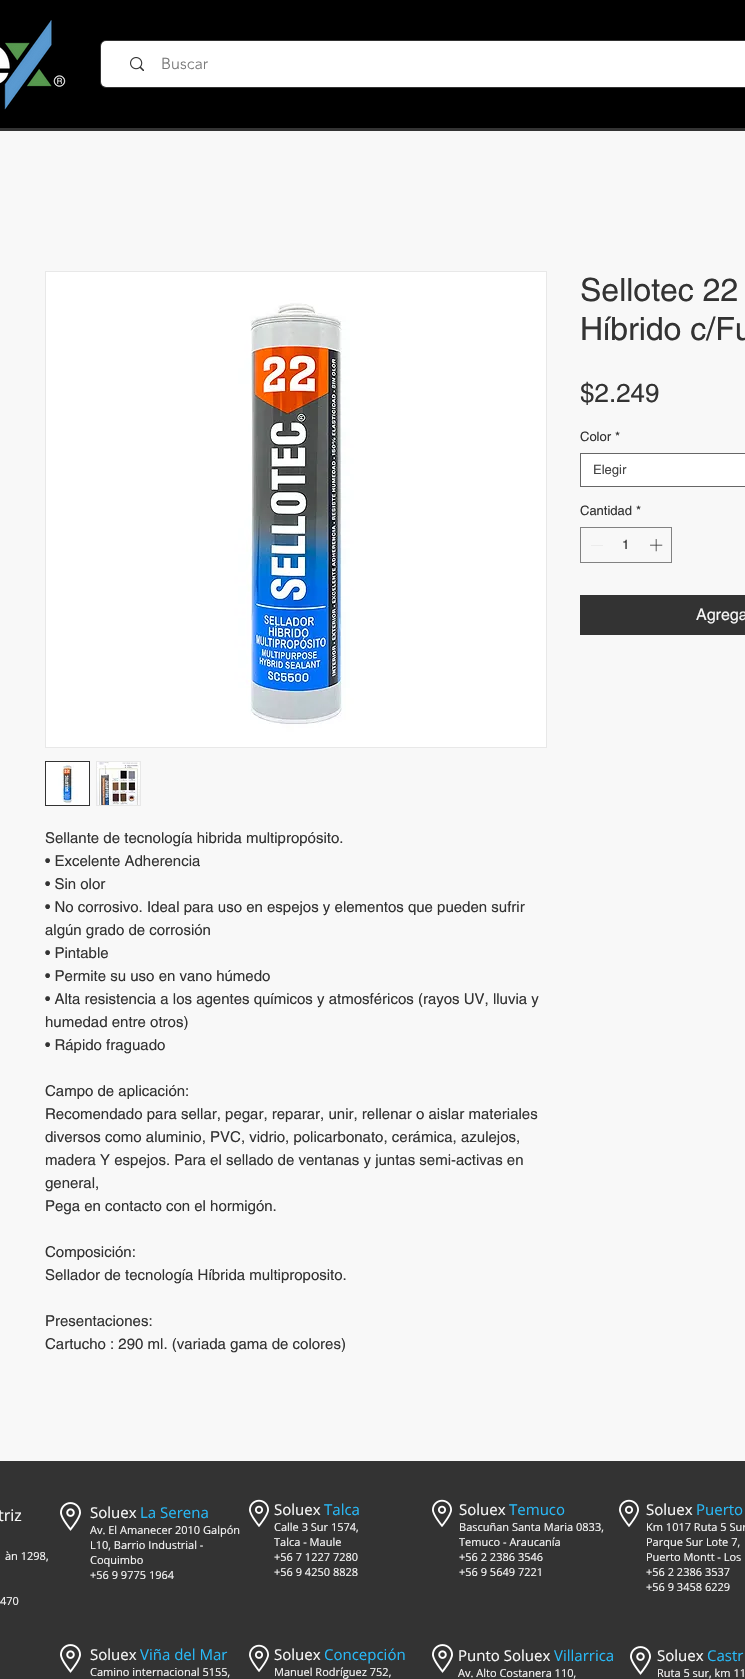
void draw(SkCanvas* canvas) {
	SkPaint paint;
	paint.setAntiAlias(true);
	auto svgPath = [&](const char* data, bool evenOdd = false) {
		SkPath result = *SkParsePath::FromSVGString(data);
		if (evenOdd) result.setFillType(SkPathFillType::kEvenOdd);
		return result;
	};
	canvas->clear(0xfff8f8f8);
	paint.setColor(0xff000000);
	canvas->drawRect(SkRect::MakeXYWH(0, 0, 745, 128), paint);
	paint.setColor(0xff333333);
	canvas->drawRect(SkRect::MakeXYWH(0, 128, 745, 3), paint);
	canvas->drawImageRect(SkImages::DeferredFromEncodedData(SkData::MakeFromFileName("img1.png")), SkRect::MakeXYWH(0, 20, 66, 90), SkSamplingOptions());
	paint.setStroke(true);
	paint.setStrokeWidth(1);
	canvas->drawRoundRect(SkRect::MakeXYWH(100.5, 40.5, 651, 47), 5.5, 5.5, paint);
	paint.setStroke(false);
	paint.setColor(0xffffffff);
	canvas->drawRoundRect(SkRect::MakeXYWH(101, 41, 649, 46), 5, 5, paint);
	canvas->drawImageRect(SkImages::DeferredFromEncodedData(SkData::MakeFromFileName("img2.png")), SkRect::MakeXYWH(130, 57, 14, 14), SkSamplingOptions());
	SkFont f1(fontMgr->matchFamilyStyle("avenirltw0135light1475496", SkFontStyle(300, SkFontStyle::kNormal_Width, SkFontStyle::kUpright_Slant)), 16);
	f1.setSubpixel(true);
	paint.setColor(0xff787878);
	canvas->drawString("Buscar", 161, 69, f1, paint);
	SkFont f2(fontMgr->matchFamilyStyle("helvetica", SkFontStyle::Normal()), 32);
	f2.setSubpixel(true);
	paint.setColor(0xff333333);
	canvas->drawString("Sellotec 22", 580, 301, f2, paint);
	canvas->drawString("Híbrido c/Fu", 580, 340, f2, paint);
	SkFont f3(fontMgr->matchFamilyStyle("helvetica", SkFontStyle::Normal()), 26);
	f3.setSubpixel(true);
	canvas->drawString("$2.249", 580, 402, f3, paint);
	SkFont f4(fontMgr->matchFamilyStyle("helvetica", SkFontStyle::Normal()), 13);
	f4.setSubpixel(true);
	canvas->drawString("Color", 580, 441, f4, paint);
	canvas->drawString("*", 615, 441, f4, paint);
	paint.setColor(0xffffffff);
	canvas->drawRect(SkRect::MakeXYWH(580.5, 453.5, 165, 33), paint);
	paint.setStroke(true);
	paint.setColor(0xff666666);
	canvas->drawRect(SkRect::MakeXYWH(580.5, 453.5, 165, 33), paint);
	paint.setStroke(false);
	paint.setColor(0xff444444);
	canvas->drawString("Elegir", 593, 474, f4, paint);
	paint.setColor(0xff333333);
	canvas->drawString("Cantidad", 580, 515, f4, paint);
	canvas->drawString("*", 636, 515, f4, paint);
	paint.setStroke(true);
	paint.setColor(0xff828282);
	canvas->drawRect(SkRect::MakeXYWH(580.5, 527.5, 91, 35), paint);
	paint.setStroke(false);
	paint.setColor(0xffe0e0e0);
	canvas->drawPath(svgPath("M603 545V545.5H591V545Z", true), paint);
	paint.setColor(0xff333333);
	canvas->drawString("1", 622, 549, f4, paint);
	canvas->drawImageRect(SkImages::DeferredFromEncodedData(SkData::MakeFromFileName("img3.png")), SkRect::MakeXYWH(650, 539, 13, 13), SkSamplingOptions());
	canvas->drawRect(SkRect::MakeXYWH(580, 595, 165, 40), paint);
	SkFont f5(fontMgr->matchFamilyStyle("helvetica", SkFontStyle::Normal()), 16);
	f5.setSubpixel(true);
	paint.setColor(0xfff8f8f8);
	canvas->drawString("Agrega", 696, 620, f5, paint);
	paint.setStroke(true);
	paint.setColor(0xffe8e8e8);
	canvas->drawRect(SkRect::MakeXYWH(45.5, 271.5, 501, 476), paint);
	canvas->drawImageRect(SkImages::DeferredFromEncodedData(SkData::MakeFromFileName("img4.png")), SkRect::MakeXYWH(46, 272, 500, 475), SkSamplingOptions());
	paint.setColor(0xff333333);
	canvas->drawRect(SkRect::MakeXYWH(45.5, 761.5, 44, 44), paint);
	canvas->drawImageRect(SkImages::DeferredFromEncodedData(SkData::MakeFromFileName("img5.png")), SkRect::MakeXYWH(46, 762, 43, 43), SkSamplingOptions());
	paint.setStroke(false);
	paint.setColor(0xffe8e8e8);
	canvas->drawRect(SkRect::MakeXYWH(96, 761, 45, 45), paint);
	canvas->drawImageRect(SkImages::DeferredFromEncodedData(SkData::MakeFromFileName("img6.png")), SkRect::MakeXYWH(97, 762, 43, 43), SkSamplingOptions());
	SkFont f6(fontMgr->matchFamilyStyle("helvetica", SkFontStyle::Normal()), 15);
	f6.setSubpixel(true);
	paint.setColor(0xff333333);
	canvas->drawString("Sellante de tecnología hibrida multipropósito.", 45, 843, f6, paint);
	canvas->drawString("• Excelente Adherencia", 45, 866, f6, paint);
	canvas->drawString("• Sin olor", 45, 889, f6, paint);
	canvas->drawString("• No corrosivo. Ideal para uso en espejos y elementos que pueden sufrir", 45, 912, f6, paint);
	canvas->drawString("algún grado de corrosión", 45, 935, f6, paint);
	canvas->drawString("• Pintable", 45, 958, f6, paint);
	canvas->drawString("• Permite su uso en vano húmedo", 45, 981, f6, paint);
	canvas->drawString("• Alta resistencia a los agentes químicos y atmosféricos (rayos UV, lluvia y", 45, 1004, f6, paint);
	canvas->drawString("humedad entre otros)", 45, 1027, f6, paint);
	canvas->drawString("• Rápido fraguado", 45, 1050, f6, paint);
	canvas->drawString("Campo de aplicación:", 45, 1096, f6, paint);
	canvas->drawString("Recomendado para sellar, pegar, reparar, unir, rellenar o aislar materiales", 45, 1119, f6, paint);
	canvas->drawString("diversos como aluminio, PVC, vidrio, policarbonato, cerámica, azulejos,", 45, 1142, f6, paint);
	canvas->drawString("madera Y espejos. Para el sellado de ventanas y juntas semi-activas en", 45, 1165, f6, paint);
	canvas->drawString("general,", 45, 1188, f6, paint);
	canvas->drawString("Pega en contacto con el hormigón.", 45, 1211, f6, paint);
	canvas->drawString("Composición:", 45, 1257, f6, paint);
	canvas->drawString("Sellador de tecnología Híbrida multiproposito.", 45, 1280, f6, paint);
	canvas->drawString("Presentaciones:", 45, 1326, f6, paint);
	canvas->drawString("Cartucho : 290 ml. (variada gama de colores)", 45, 1349, f6, paint);
	canvas->drawRect(SkRect::MakeXYWH(0, 1461, 745, 218), paint);
	SkFont f7(fontMgr->matchFamilyStyle("Open Sans", SkFontStyle::Normal()), 16);
	f7.setSubpixel(true);
	paint.setColor(0xfff8f8f8);
	canvas->drawString("triz", -2, 1521, f7, paint);
	SkFont f8(fontMgr->matchFamilyStyle("Open Sans", SkFontStyle::Normal()), 11);
	f8.setSubpixel(true);
	canvas->drawString("àn 1298,", 5, 1560, f8, paint);
	canvas->drawString("470", 0, 1605, f8, paint);
	canvas->drawImageRect(SkImages::DeferredFromEncodedData(SkData::MakeFromFileName("img7.png")), SkRect::MakeXYWH(60, 1502, 21, 29), SkSamplingOptions());
	SkFont f9(fontMgr->matchFamilyStyle("Open Sans", SkFontStyle::Normal()), 15);
	f9.setSubpixel(true);
	canvas->drawString("Soluex", 90, 1518, f9, paint);
	paint.setColor(0xff28b9f7);
	canvas->drawString("La Serena", 140, 1518, f9, paint);
	paint.setColor(0xfff8f8f8);
	canvas->drawString("Av. El Amanecer 2010 Galpón", 90, 1534, f8, paint);
	canvas->drawString("L10, Barrio Industrial -", 90, 1549, f8, paint);
	canvas->drawString("Coquimbo", 90, 1564, f8, paint);
	canvas->drawString("+56 9 9775 1964", 90, 1579, f8, paint);
	canvas->drawImageRect(SkImages::DeferredFromEncodedData(SkData::MakeFromFileName("img8.png")), SkRect::MakeXYWH(249, 1499, 20, 28), SkSamplingOptions());
	canvas->drawString("Soluex", 274, 1515, f9, paint);
	paint.setColor(0xff28b9f7);
	canvas->drawString("Talca", 324, 1515, f9, paint);
	paint.setColor(0xfff8f8f8);
	canvas->drawString("Calle 3 Sur 1574,", 274, 1531, f8, paint);
	canvas->drawString("Talca - Maule", 274, 1546, f8, paint);
	canvas->drawString("+56 7 1227 7280", 274, 1561, f8, paint);
	canvas->drawString("+56 9 4250 8828", 274, 1576, f8, paint);
	canvas->drawImageRect(SkImages::DeferredFromEncodedData(SkData::MakeFromFileName("img8.png")), SkRect::MakeXYWH(432, 1499, 20, 28), SkSamplingOptions());
	canvas->drawString("Soluex", 459, 1515, f9, paint);
	paint.setColor(0xff28b9f7);
	canvas->drawString("Temuco", 509, 1515, f9, paint);
	paint.setColor(0xfff8f8f8);
	canvas->drawString("Bascuñan Santa Maria 0833,", 459, 1531, f8, paint);
	canvas->drawString("Temuco - Araucanía", 459, 1546, f8, paint);
	canvas->drawString("+56 2 2386 3546", 459, 1561, f8, paint);
	canvas->drawString("+56 9 5649 7221", 459, 1576, f8, paint);
	canvas->drawImageRect(SkImages::DeferredFromEncodedData(SkData::MakeFromFileName("img8.png")), SkRect::MakeXYWH(619, 1499, 20, 28), SkSamplingOptions());
	canvas->drawString("Soluex", 646, 1515, f9, paint);
	paint.setColor(0xff28b9f7);
	canvas->drawString("Puerto", 696, 1515, f9, paint);
	paint.setColor(0xfff8f8f8);
	canvas->drawString("Km 1017 Ruta 5 Sur", 646, 1531, f8, paint);
	canvas->drawString("Parque Sur Lote 7,", 646, 1546, f8, paint);
	canvas->drawString("Puerto Montt - Los", 646, 1561, f8, paint);
	canvas->drawString("+56 2 2386 3537", 646, 1576, f8, paint);
	canvas->drawString("+56 9 3458 6229", 646, 1591, f8, paint);
	canvas->drawImageRect(SkImages::DeferredFromEncodedData(SkData::MakeFromFileName("img7.png")), SkRect::MakeXYWH(60, 1644, 21, 29), SkSamplingOptions());
	canvas->drawString("Soluex", 90, 1660, f9, paint);
	paint.setColor(0xff28b9f7);
	canvas->drawString("Viña del Mar", 140, 1660, f9, paint);
	paint.setColor(0xfff8f8f8);
	canvas->drawString("Camino internacional 5155,", 90, 1676, f8, paint);
	canvas->drawImageRect(SkImages::DeferredFromEncodedData(SkData::MakeFromFileName("img8.png")), SkRect::MakeXYWH(249, 1644, 20, 28), SkSamplingOptions());
	canvas->drawString("Soluex", 274, 1660, f9, paint);
	paint.setColor(0xff28b9f7);
	canvas->drawString("Concepción", 324, 1660, f9, paint);
	paint.setColor(0xfff8f8f8);
	canvas->drawString("Manuel Rodríguez 752,", 274, 1676, f8, paint);
	canvas->drawImageRect(SkImages::DeferredFromEncodedData(SkData::MakeFromFileName("img7.png")), SkRect::MakeXYWH(432, 1644, 21, 29), SkSamplingOptions());
	canvas->drawString("Punto Soluex", 458, 1661, f9, paint);
	paint.setColor(0xff28b9f7);
	canvas->drawString("Villarrica", 554, 1661, f9, paint);
	paint.setColor(0xfff8f8f8);
	canvas->drawString("Av. Alto Costanera 110,", 458, 1677, f8, paint);
	canvas->drawImageRect(SkImages::DeferredFromEncodedData(SkData::MakeFromFileName("img7.png")), SkRect::MakeXYWH(630, 1646, 21, 29), SkSamplingOptions());
	canvas->drawString("Soluex", 657, 1661, f9, paint);
	paint.setColor(0xff28b9f7);
	canvas->drawString("Castr", 707, 1661, f9, paint);
	paint.setColor(0xfff8f8f8);
	canvas->drawString("Ruta 5 sur, km 11", 657, 1677, f8, paint);
}
